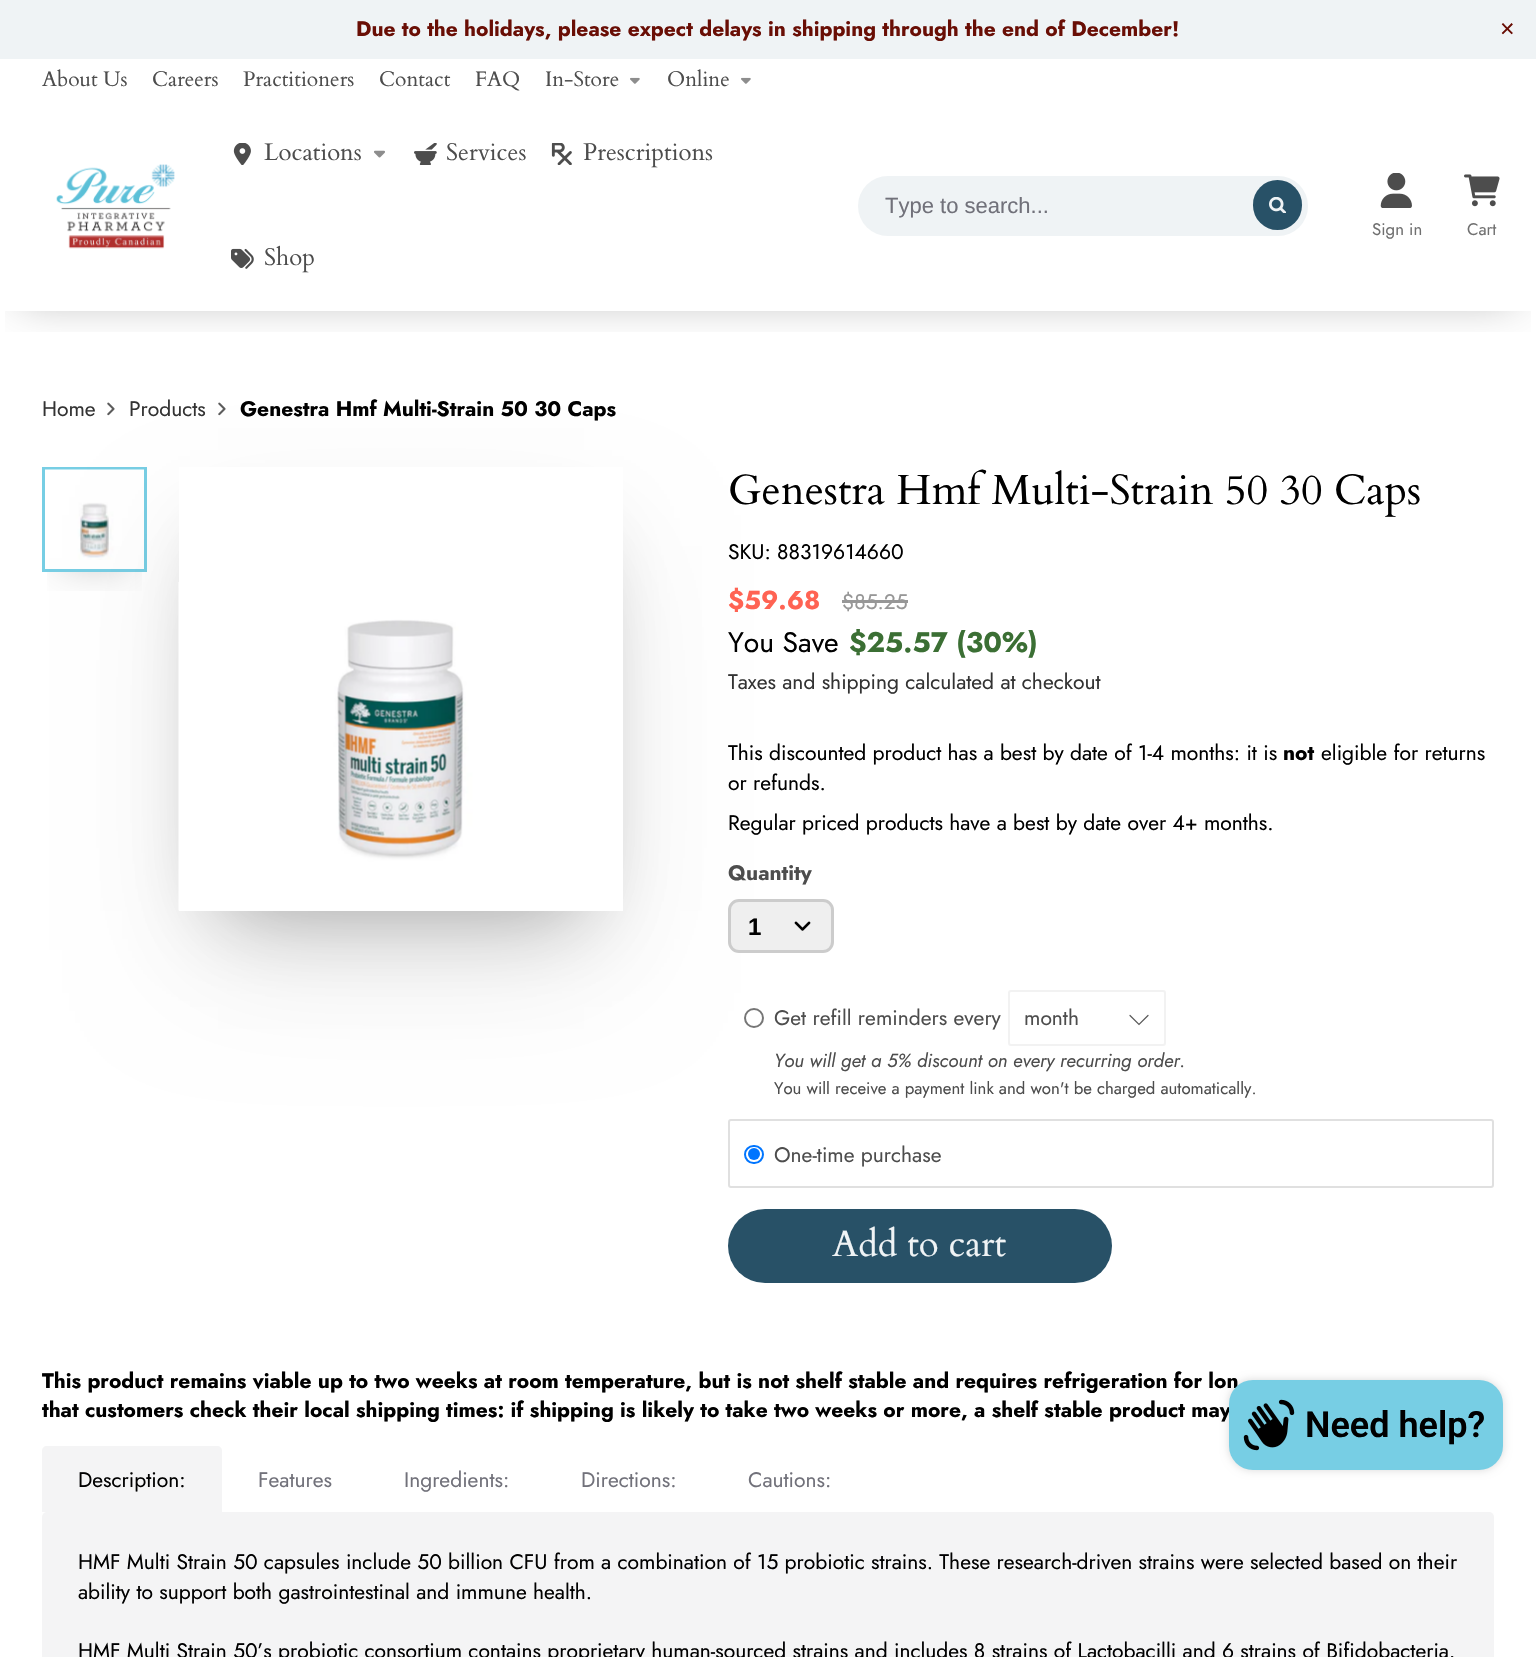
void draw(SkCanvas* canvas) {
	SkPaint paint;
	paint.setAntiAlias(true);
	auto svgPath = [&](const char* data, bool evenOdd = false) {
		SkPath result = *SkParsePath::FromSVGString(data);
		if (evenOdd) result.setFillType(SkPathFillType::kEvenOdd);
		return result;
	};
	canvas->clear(0xffffffff);
	paint.setColor(0xffeff3f5);
	canvas->drawRect(SkRect::MakeXYWH(0, 0, 1536, 59), paint);
	SkFont f1(fontMgr->matchFamilyStyle("Jost", SkFontStyle::Bold()), 21);
	f1.setSubpixel(true);
	paint.setColor(0xff690e05);
	canvas->drawString("Due to the holidays, please expect delays in shipping through the end of December!", 356, 36, f1, paint);
	SkFont f2(fontMgr->matchFamilyStyle("Liberation Sans", SkFontStyle::Normal()), 25);
	f2.setSubpixel(true);
	canvas->drawString("×", 1500, 37, f2, paint);
	canvas->save();
	canvas->clipRect(SkRect::MakeXYWH(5, 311, 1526, 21));
	paint.setColor(0x4d000000);
	paint.setMaskFilter(SkMaskFilter::MakeBlur(kNormal_SkBlurStyle, 21));
	canvas->drawRect(SkRect::MakeXYWH(21, 90, 1494, 210), paint);
	paint.setMaskFilter(nullptr);
	canvas->restore();
	SkFont f3(fontMgr->matchFamilyStyle("Cardo", SkFontStyle::Normal()), 21);
	f3.setSubpixel(true);
	paint.setColor(0xff4d4d4d);
	canvas->drawString("About Us", 42, 86, f3, paint);
	canvas->drawString("Careers", 152, 86, f3, paint);
	canvas->drawString("Practitioners", 243, 86, f3, paint);
	canvas->drawString("Contact", 379, 86, f3, paint);
	canvas->drawString("FAQ", 475, 86, f3, paint);
	canvas->drawString("In-Store", 545, 86, f3, paint);
	canvas->drawImageRect(SkImages::DeferredFromEncodedData(SkData::MakeFromFileName("img1.png")), SkRect::MakeXYWH(630, 77, 10, 7), SkSamplingOptions());
	canvas->drawString("Online", 667, 86, f3, paint);
	canvas->drawImageRect(SkImages::DeferredFromEncodedData(SkData::MakeFromFileName("img1.png")), SkRect::MakeXYWH(741, 77, 10, 7), SkSamplingOptions());
	paint.setColor(0xffffffff);
	canvas->drawRect(SkRect::MakeXYWH(4, 310, 1528, 1), paint);
	canvas->drawImageRect(SkImages::DeferredFromEncodedData(SkData::MakeFromFileName("img2.png")), SkRect::MakeXYWH(56, 164, 119, 85), SkSamplingOptions());
	canvas->drawImageRect(SkImages::DeferredFromEncodedData(SkData::MakeFromFileName("img3.png")), SkRect::MakeXYWH(233, 143, 18, 22), SkSamplingOptions());
	SkFont f4(fontMgr->matchFamilyStyle("Cardo", SkFontStyle::Normal()), 24);
	f4.setSubpixel(true);
	paint.setColor(0xff4d4d4d);
	canvas->drawString("Locations", 264, 160, f4, paint);
	canvas->drawImageRect(SkImages::DeferredFromEncodedData(SkData::MakeFromFileName("img4.png")), SkRect::MakeXYWH(374, 150, 11, 8), SkSamplingOptions());
	canvas->drawImageRect(SkImages::DeferredFromEncodedData(SkData::MakeFromFileName("img5.png")), SkRect::MakeXYWH(414, 143, 23, 22), SkSamplingOptions());
	canvas->drawString("Services", 446, 160, f4, paint);
	canvas->drawImageRect(SkImages::DeferredFromEncodedData(SkData::MakeFromFileName("img6.png")), SkRect::MakeXYWH(551, 143, 21, 22), SkSamplingOptions());
	canvas->drawString("Prescriptions", 583, 160, f4, paint);
	canvas->drawImageRect(SkImages::DeferredFromEncodedData(SkData::MakeFromFileName("img7.png")), SkRect::MakeXYWH(231, 248, 23, 21), SkSamplingOptions());
	canvas->drawString("Shop", 264, 265, f4, paint);
	paint.setColor(0xffeff3f5);
	canvas->drawRoundRect(SkRect::MakeXYWH(858, 176, 450, 60), 30, 30, paint);
	SkFont f5(fontMgr->matchFamilyStyle("Liberation Sans", SkFontStyle::Normal()), 22);
	f5.setSubpixel(true);
	paint.setColor(0xff71717a);
	canvas->drawString("Type to search...", 885, 213, f5, paint);
	paint.setColor(0xff285167);
	canvas->drawRoundRect(SkRect::MakeXYWH(1253, 180, 49, 50), 24.5, 24.5, paint);
	canvas->drawImageRect(SkImages::DeferredFromEncodedData(SkData::MakeFromFileName("img8.png")), SkRect::MakeXYWH(1269, 197, 17, 16), SkSamplingOptions());
	canvas->drawImageRect(SkImages::DeferredFromEncodedData(SkData::MakeFromFileName("img9.png")), SkRect::MakeXYWH(1380, 173, 32, 35), SkSamplingOptions());
	SkFont f6(fontMgr->matchFamilyStyle("Jost", SkFontStyle::Normal()), 16.8);
	f6.setSubpixel(true);
	paint.setColor(0xff707070);
	canvas->drawString("Sign in", 1372, 235, f6, paint);
	canvas->drawImageRect(SkImages::DeferredFromEncodedData(SkData::MakeFromFileName("img10.png")), SkRect::MakeXYWH(1464, 174, 36, 33), SkSamplingOptions());
	canvas->drawString("Cart", 1467, 235, f6, paint);
	SkFont f7(fontMgr->matchFamilyStyle("Jost", SkFontStyle::Normal()), 21);
	f7.setSubpixel(true);
	paint.setColor(0xff333333);
	canvas->drawString("Home", 42, 416, f7, paint);
	canvas->drawImageRect(SkImages::DeferredFromEncodedData(SkData::MakeFromFileName("img11.png")), SkRect::MakeXYWH(107, 402, 8, 14), SkSamplingOptions());
	canvas->drawString("Products", 129, 416, f7, paint);
	canvas->drawImageRect(SkImages::DeferredFromEncodedData(SkData::MakeFromFileName("img11.png")), SkRect::MakeXYWH(218, 402, 8, 14), SkSamplingOptions());
	paint.setColor(0xff000000);
	canvas->drawString("Genestra Hmf Multi-Strain 50 30 Caps", 240, 416, f1, paint);
	canvas->save();
	canvas->clipRect(SkRect::MakeXYWH(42, 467, 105, 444));
	canvas->clipRect(SkRect::MakeXYWH(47, 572, 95, 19));
	paint.setColor(0x4d000000);
	paint.setMaskFilter(SkMaskFilter::MakeBlur(kNormal_SkBlurStyle, 21));
	canvas->drawRect(SkRect::MakeXYWH(63, 498, 63, 63), paint);
	paint.setMaskFilter(nullptr);
	canvas->restore();
	paint.setStroke(true);
	paint.setStrokeWidth(3);
	paint.setColor(0xff77cee4);
	canvas->drawRect(SkRect::MakeXYWH(43.5, 468.5, 102, 102), paint);
	canvas->drawImageRect(SkImages::DeferredFromEncodedData(SkData::MakeFromFileName("img13.png")), SkRect::MakeXYWH(45, 469, 99, 91), SkSamplingOptions());
	canvas->save();
	canvas->clipPath(svgPath("M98 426H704V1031H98ZM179 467H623V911H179Z", true), true);
	paint.setStroke(false);
	paint.setColor(0x4d000000);
	paint.setMaskFilter(SkMaskFilter::MakeBlur(kNormal_SkBlurStyle, 39.5));
	canvas->drawRect(SkRect::MakeXYWH(218, 546, 366, 365), paint);
	paint.setMaskFilter(nullptr);
	canvas->restore();
	canvas->save();
	canvas->clipPath(svgPath("M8 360H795V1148H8ZM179 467H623V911H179Z", true), true);
	paint.setColor(0x1a000000);
	paint.setMaskFilter(SkMaskFilter::MakeBlur(kNormal_SkBlurStyle, 65.5));
	canvas->drawRect(SkRect::MakeXYWH(206, 558, 391, 392), paint);
	paint.setMaskFilter(nullptr);
	canvas->restore();
	canvas->drawImageRect(SkImages::DeferredFromEncodedData(SkData::MakeFromFileName("img12.png")), SkRect::MakeXYWH(178, 582, 445, 329), SkSamplingOptions());
	SkFont f8(fontMgr->matchFamilyStyle("Cardo", SkFontStyle::Normal()), 42.25);
	f8.setSubpixel(true);
	paint.setColor(0xff000000);
	canvas->drawString("Genestra Hmf Multi-Strain 50 30 Caps", 728, 504, f8, paint);
	canvas->drawString("SKU: 88319614660", 728, 559, f7, paint);
	SkFont f9(fontMgr->matchFamilyStyle("Jost", SkFontStyle::Bold()), 26);
	f9.setSubpixel(true);
	paint.setColor(0xffff6353);
	canvas->drawString("$59.68", 728, 609, f9, paint);
	paint.setColor(0xff979797);
	canvas->drawString("$85.25", 842, 609, f7, paint);
	canvas->drawRect(SkRect::MakeXYWH(842, 600, 66, 3), paint);
	SkFont f10(fontMgr->matchFamilyStyle("Jost", SkFontStyle::Normal()), 28.25);
	f10.setSubpixel(true);
	paint.setColor(0xff000000);
	canvas->drawString("You Save", 728, 652, f10, paint);
	SkFont f11(fontMgr->matchFamilyStyle("Jost", SkFontStyle::Bold()), 28.25);
	f11.setSubpixel(true);
	paint.setColor(0xff3b6f34);
	canvas->drawString("$25.57 (30%)", 849, 652, f11, paint);
	paint.setColor(0xff333333);
	canvas->drawString("Taxes and shipping calculated at checkout", 728, 689, f7, paint);
	paint.setColor(0xff000000);
	canvas->drawString("This discounted product has a best by date of 1-4 months: it is", 728, 760, f7, paint);
	canvas->drawString("not", 1283, 760, f1, paint);
	canvas->drawString("eligible for returns", 1321, 760, f7, paint);
	canvas->drawString("or refunds.", 728, 790, f7, paint);
	canvas->drawString("Regular priced products have a best by date over 4+ months.", 728, 830, f7, paint);
	paint.setColor(0xff4d4d4d);
	canvas->drawString("Quantity", 728, 880, f1, paint);
	paint.setColor(0xffefefef);
	canvas->drawRoundRect(SkRect::MakeXYWH(729.5, 900.5, 103, 51), 9.5, 9.5, paint);
	paint.setStroke(true);
	paint.setColor(0xffcccccc);
	canvas->drawRoundRect(SkRect::MakeXYWH(729.5, 900.5, 103, 51), 9.5, 9.5, paint);
	SkFont f12(fontMgr->matchFamilyStyle("Liberation Sans", SkFontStyle::Bold()), 24);
	f12.setSubpixel(true);
	paint.setStroke(false);
	paint.setColor(0xff000000);
	canvas->drawString("1", 748, 935, f12, paint);
	canvas->drawImageRect(SkImages::DeferredFromEncodedData(SkData::MakeFromFileName("img14.png")), SkRect::MakeXYWH(794, 921, 17, 10), SkSamplingOptions());
	paint.setStroke(true);
	paint.setStrokeWidth(2);
	paint.setColor(0xff767676);
	canvas->drawCircle(754, 1018, 9, paint);
	paint.setStroke(false);
	paint.setColor(0xff4d4d4d);
	canvas->drawString("Get refill reminders every", 774, 1025, f7, paint);
	paint.setStroke(true);
	paint.setStrokeWidth(1.2);
	paint.setStrokeCap(SkPaint::kRound_Cap);
	paint.setColor(0xff585858);
	canvas->drawPath(svgPath("M1130 1015.5L1139 1024.5L1148 1015.5"), paint);
	paint.setStrokeWidth(2);
	paint.setStrokeCap(SkPaint::kButt_Cap);
	paint.setColor(0xfff2f2f2);
	canvas->drawRoundRect(SkRect::MakeXYWH(1009, 991, 156, 54), 2, 2, paint);
	paint.setStroke(false);
	paint.setColor(0xff4d4d4d);
	canvas->drawString("month", 1024, 1025, f7, paint);
	SkFont f13(fontMgr->matchFamilyStyle("Jost", SkFontStyle::Italic()), 18.9);
	f13.setSubpixel(true);
	canvas->drawString("You will get a 5% discount on every recurring order.", 774, 1067, f13, paint);
	canvas->drawString("You will receive a payment link and won't be charged automatically.", 774, 1094, f6, paint);
	paint.setStroke(true);
	paint.setColor(0xffe0e0e0);
	canvas->drawRoundRect(SkRect::MakeXYWH(729, 1120, 764, 67), 2, 2, paint);
	paint.setColor(0xff0075ff);
	canvas->drawRoundRect(SkRect::MakeXYWH(745, 1146, 18, 17), 8.5, 8.5, paint);
	paint.setStroke(false);
	canvas->drawCircle(754, 1154, 6, paint);
	paint.setColor(0xff4d4d4d);
	canvas->drawString("One-time purchase", 774, 1162, f7, paint);
	paint.setColor(0xff285167);
	canvas->drawRoundRect(SkRect::MakeXYWH(728, 1209, 384, 74), 37, 37, paint);
	SkFont f14(fontMgr->matchFamilyStyle("Cardo", SkFontStyle::Normal()), 36.75);
	f14.setSubpixel(true);
	paint.setColor(0xffeff3f5);
	canvas->drawString("Add to cart", 832, 1256, f14, paint);
	paint.setColor(0xff000000);
	canvas->drawString("This product remains viable up to two weeks at room temperature, but is not shelf stable and requires refrigeration for lon", 42, 1388, f1, paint);
	canvas->drawString("that customers check their local shipping times: if shipping is likely to take two weeks or more, a shelf stable product may", 42, 1417, f1, paint);
	paint.setColor(0xfff4f4f5);
	canvas->drawPath(svgPath("M47 1446H217C220 1446 222 1448 222 1451V1512H42V1451C42 1448 44 1446 47 1446Z"), paint);
	paint.setColor(0xff000000);
	canvas->drawString("Description:", 78, 1487, f7, paint);
	paint.setColor(0xff71717a);
	canvas->drawString("Features", 258, 1487, f7, paint);
	canvas->drawString("Ingredients:", 404, 1487, f7, paint);
	canvas->drawString("Directions:", 581, 1487, f7, paint);
	canvas->drawString("Cautions:", 748, 1487, f7, paint);
	paint.setColor(0xfff4f4f5);
	canvas->drawRoundRect(SkRect::MakeXYWH(42, 1512, 1452, 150), 5, 5, paint);
	paint.setColor(0xff000000);
	canvas->drawString("HMF Multi Strain 50 capsules include 50 billion CFU from a combination of 15 probiotic strains. These research-driven strains were selected based on their", 78, 1569, f7, paint);
	canvas->drawString("ability to support both gastrointestinal and immune health.", 78, 1599, f7, paint);
	canvas->drawString("HMF Multi Strain 50’s probiotic consortium contains proprietary human-sourced strains and includes 8 strains of Lactobacilli and 6 strains of Bifidobacteria.", 78, 1658, f7, paint);
	paint.setColor(0x26000000);
	paint.setMaskFilter(SkMaskFilter::MakeBlur(kNormal_SkBlurStyle, 4));
	canvas->drawRoundRect(SkRect::MakeXYWH(1229, 1380, 274, 90), 24, 24, paint);
	paint.setMaskFilter(nullptr);
	paint.setColor(0xff77cee4);
	canvas->drawRoundRect(SkRect::MakeXYWH(1229, 1380, 274, 90), 24, 24, paint);
	canvas->drawImageRect(SkImages::DeferredFromEncodedData(SkData::MakeFromFileName("img15.png")), SkRect::MakeXYWH(1243, 1399, 52, 52), SkSamplingOptions());
	SkFont f15(fontMgr->matchFamilyStyle("Roboto", SkFontStyle(600, SkFontStyle::kNormal_Width, SkFontStyle::kUpright_Slant)), 36);
	f15.setSubpixel(true);
	paint.setColor(0xff000000);
	canvas->drawString("Need help?", 1305, 1437, f15, paint);
}
